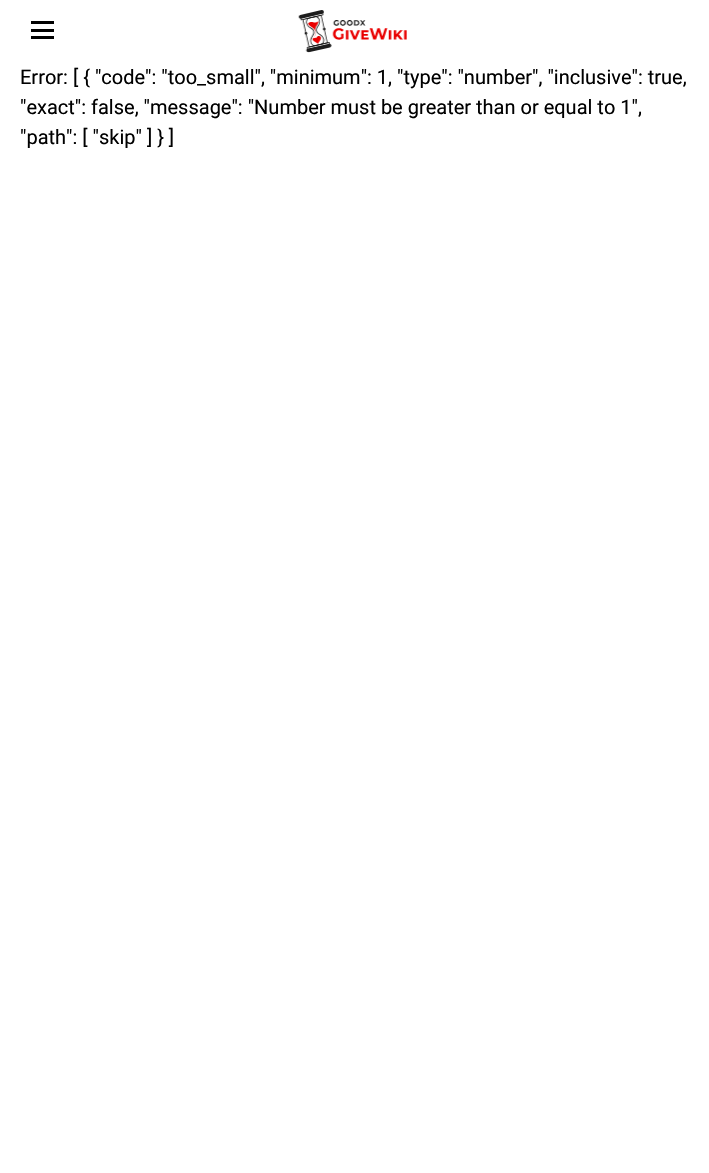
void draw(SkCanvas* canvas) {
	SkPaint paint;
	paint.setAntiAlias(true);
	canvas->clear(0xffffffff);
	paint.setColor(0xff000000);
	canvas->drawRect(SkRect::MakeXYWH(31, 29, 23, 3), paint);
	canvas->drawRect(SkRect::MakeXYWH(31, 21, 23, 3), paint);
	canvas->drawRect(SkRect::MakeXYWH(31, 36, 23, 3), paint);
	canvas->drawImageRect(SkImages::DeferredFromEncodedData(SkData::MakeFromFileName("img1.png")), SkRect::MakeXYWH(298, 10, 109, 43), SkSamplingOptions());
	SkFont f1(fontMgr->matchFamilyStyle("Roboto", SkFontStyle::Normal()), 20);
	f1.setSubpixel(true);
	canvas->drawString("Error: [ { \"code\": \"too_small\", \"minimum\": 1, \"type\": \"number\", \"inclusive\": true,", 20, 84, f1, paint);
	canvas->drawString("\"exact\": false, \"message\": \"Number must be greater than or equal to 1\",", 20, 114, f1, paint);
	canvas->drawString("\"path\": [ \"skip\" ] } ]", 20, 144, f1, paint);
}
